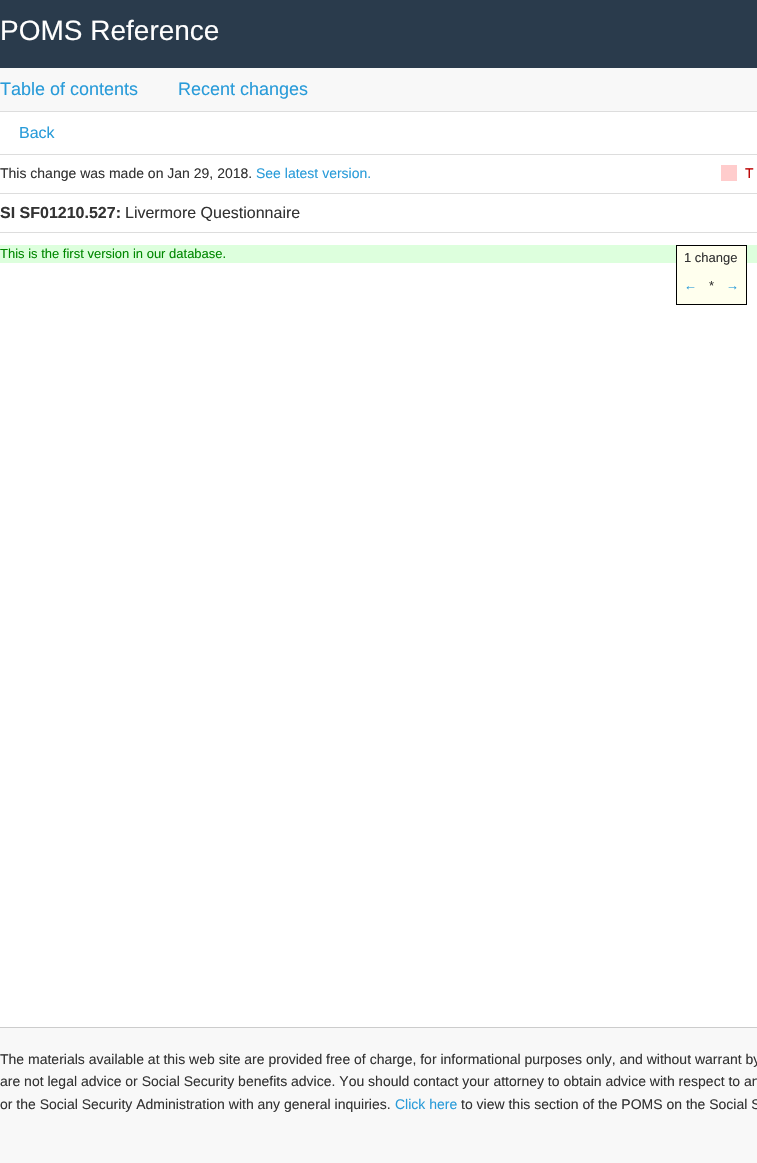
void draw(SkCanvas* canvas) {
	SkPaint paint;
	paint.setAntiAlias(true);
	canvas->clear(0xffffffff);
	paint.setColor(0xff2a3b4c);
	canvas->drawRect(SkRect::MakeXYWH(0, 0, 757, 68), paint);
	SkFont f1(fontMgr->matchFamilyStyle("Liberation Sans", SkFontStyle::Normal()), 28);
	f1.setSubpixel(true);
	paint.setColor(0xffffffff);
	canvas->drawString("POMS Reference", 0, 40, f1, paint);
	paint.setColor(0xfff8f8f8);
	canvas->drawRect(SkRect::MakeXYWH(0, 68, 757, 43), paint);
	paint.setColor(0xffdddddd);
	canvas->drawRect(SkRect::MakeXYWH(0, 111, 757, 1), paint);
	SkFont f2(fontMgr->matchFamilyStyle("Liberation Sans", SkFontStyle::Normal()), 18);
	f2.setSubpixel(true);
	paint.setColor(0xff289bd9);
	canvas->drawString("Table of contents", 0, 95, f2, paint);
	canvas->drawString("Recent changes", 178, 95, f2, paint);
	paint.setColor(0xffdddddd);
	canvas->drawRect(SkRect::MakeXYWH(0, 154, 757, 1), paint);
	SkFont f3(fontMgr->matchFamilyStyle("Liberation Sans", SkFontStyle::Normal()), 16);
	f3.setSubpixel(true);
	paint.setColor(0xff289bd9);
	canvas->drawString("Back", 19, 138, f3, paint);
	paint.setColor(0xffdddddd);
	canvas->drawRect(SkRect::MakeXYWH(0, 193, 757, 1), paint);
	SkFont f4(fontMgr->matchFamilyStyle("Liberation Sans", SkFontStyle::Normal()), 14);
	f4.setSubpixel(true);
	paint.setColor(0xff333333);
	canvas->drawString("This change was made on Jan 29, 2018.", 0, 178, f4, paint);
	paint.setColor(0xff289bd9);
	canvas->drawString("See latest version.", 256, 178, f4, paint);
	paint.setColor(0xffffcccc);
	canvas->drawRect(SkRect::MakeXYWH(721, 165, 16, 16), paint);
	paint.setColor(0xffbb0000);
	canvas->drawString("T", 745, 178, f4, paint);
	paint.setColor(0xffdddddd);
	canvas->drawRect(SkRect::MakeXYWH(0, 232, 757, 1), paint);
	SkFont f5(fontMgr->matchFamilyStyle("Liberation Sans", SkFontStyle::Bold()), 16);
	f5.setSubpixel(true);
	paint.setColor(0xff333333);
	canvas->drawString("SI SF01210.527:", 0, 218, f5, paint);
	canvas->drawString("Livermore Questionnaire", 125, 218, f3, paint);
	paint.setColor(0xffddffdd);
	canvas->drawRect(SkRect::MakeXYWH(0, 245, 757, 18), paint);
	SkFont f6(fontMgr->matchFamilyStyle("Liberation Sans", SkFontStyle::Normal()), 13);
	f6.setSubpixel(true);
	paint.setColor(0xff008800);
	canvas->drawString("This is the first version in our database.", 0, 258, f6, paint);
	paint.setColor(0xffffffee);
	canvas->drawRect(SkRect::MakeXYWH(676.5, 245.5, 70, 59), paint);
	paint.setStroke(true);
	paint.setStrokeWidth(1);
	paint.setColor(0xff000000);
	canvas->drawRect(SkRect::MakeXYWH(676.5, 245.5, 70, 59), paint);
	paint.setStroke(false);
	paint.setColor(0xff333333);
	canvas->drawString("1 change", 684, 262, f6, paint);
	canvas->drawString("*", 709, 290, f6, paint);
	paint.setColor(0xff289bd9);
	canvas->drawString("←", 684, 290, f6, paint);
	canvas->drawString("→", 726, 290, f6, paint);
	paint.setColor(0xfff8f8f8);
	canvas->drawRect(SkRect::MakeXYWH(0, 1028, 757, 135), paint);
	paint.setColor(0xffcccccc);
	canvas->drawRect(SkRect::MakeXYWH(0, 1027, 757, 1), paint);
	paint.setColor(0xff333333);
	canvas->drawString("The materials available at this web site are provided free of charge, for informational purposes only, and without warrant by", 0, 1064, f4, paint);
	canvas->drawString("are not legal advice or Social Security benefits advice. You should contact your attorney to obtain advice with respect to an", 0, 1086, f4, paint);
	canvas->drawString("or the Social Security Administration with any general inquiries.", 0, 1109, f4, paint);
	paint.setColor(0xff289bd9);
	canvas->drawString("Click here", 395, 1109, f4, paint);
	paint.setColor(0xff333333);
	canvas->drawString("to view this section of the POMS on the Social S", 461, 1109, f4, paint);
}
